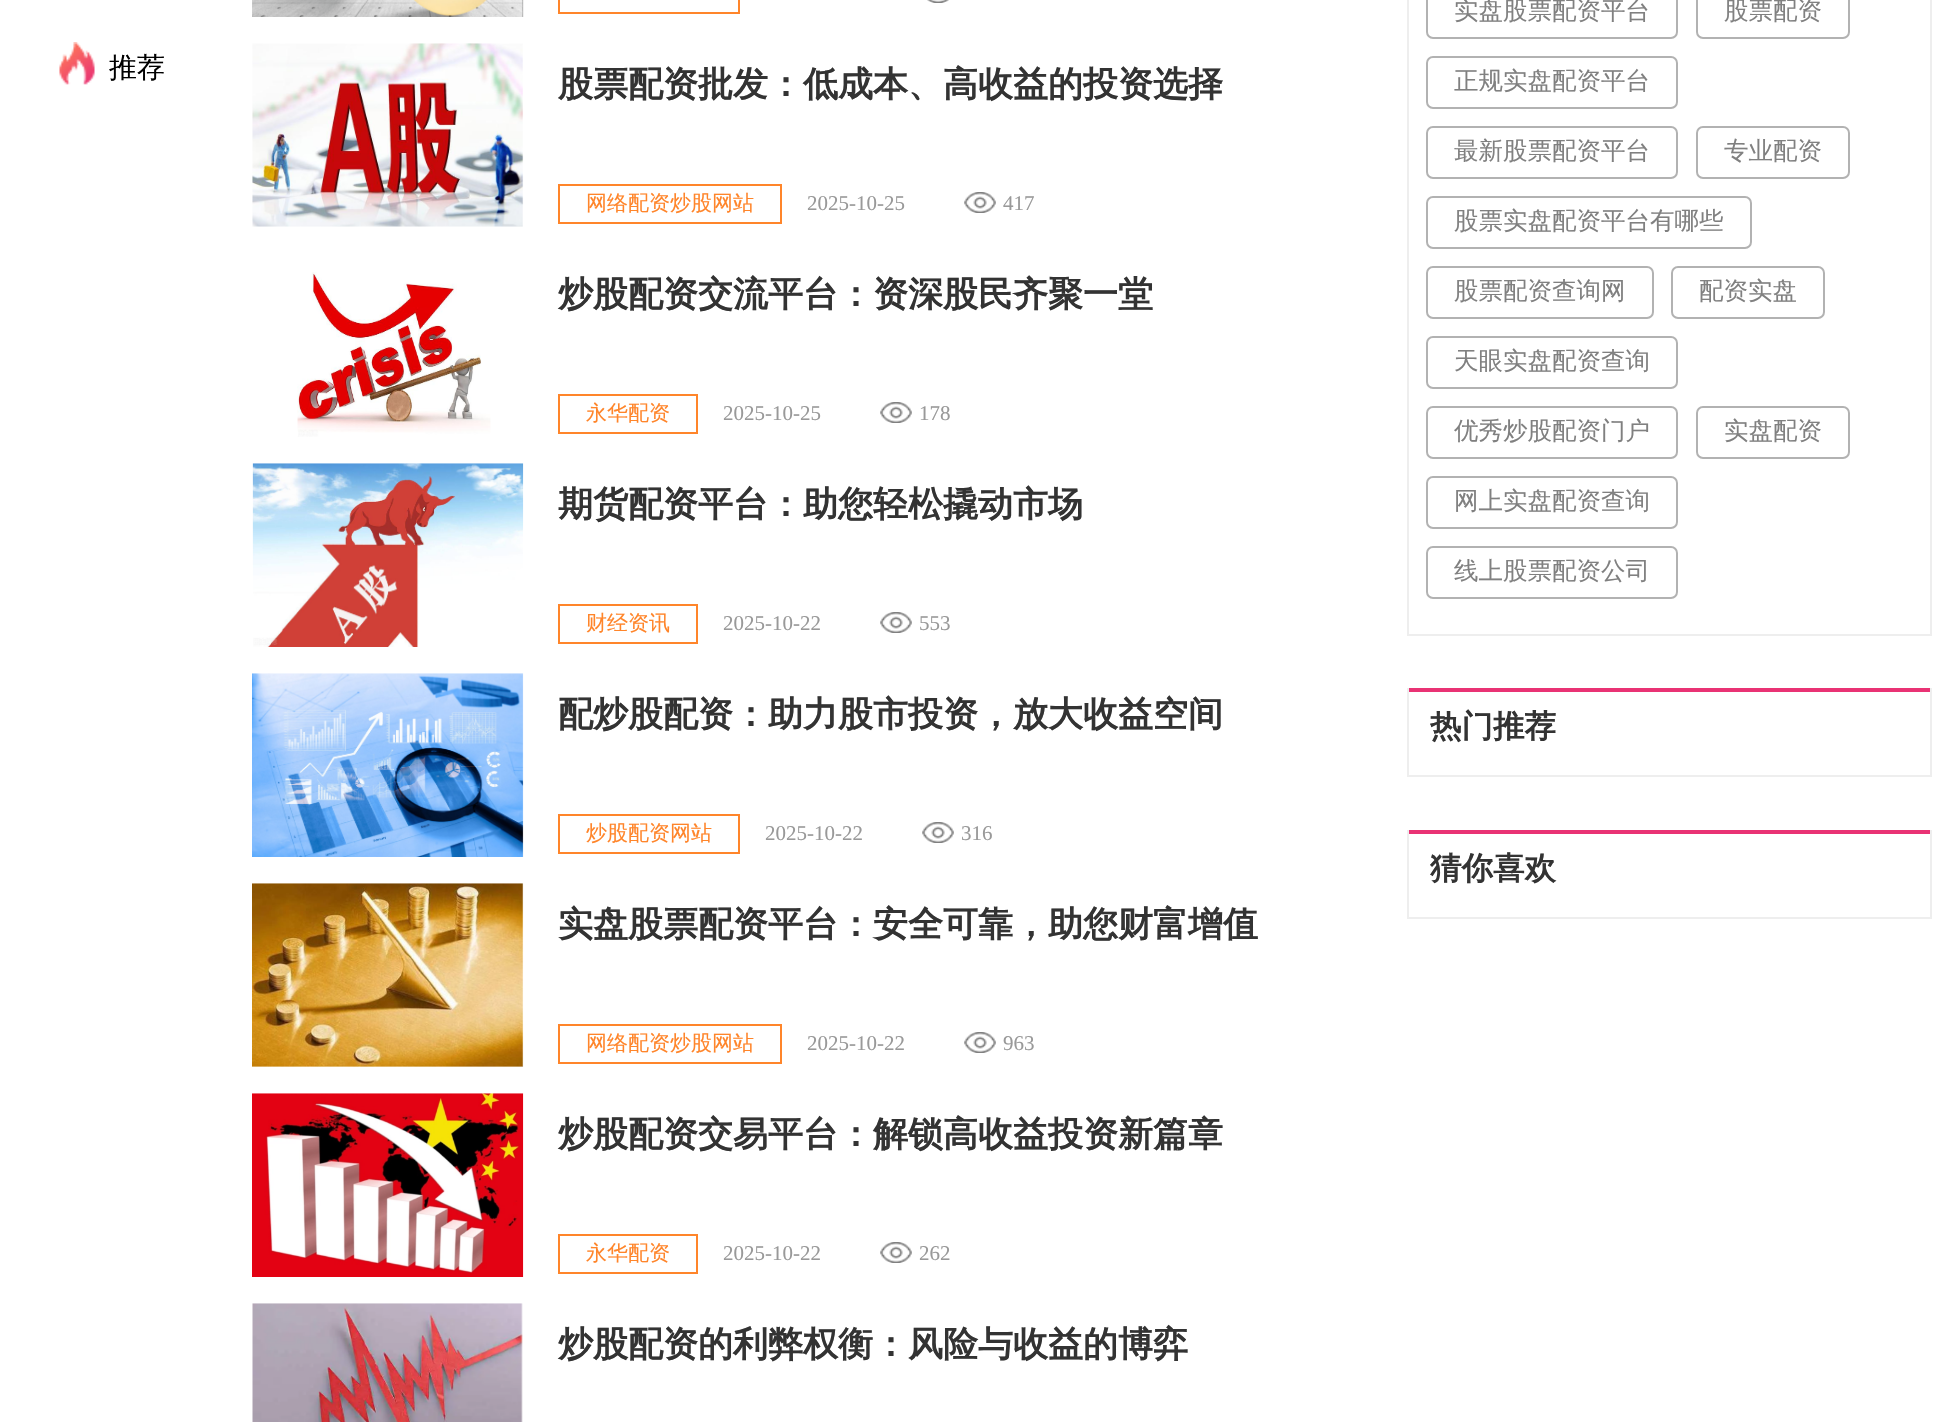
void draw(SkCanvas* canvas) {
	SkPaint paint;
	paint.setAntiAlias(true);
	canvas->clear(0xffffffff);
	canvas->drawImageRect(SkImages::DeferredFromEncodedData(SkData::MakeFromFileName("img1.png")), SkRect::MakeXYWH(59, 42, 36, 43), SkSamplingOptions());
	SkFont f1(fontMgr->matchFamilyStyle("WenQuanYi Zen Hei", SkFontStyle(500, SkFontStyle::kNormal_Width, SkFontStyle::kUpright_Slant)), 28);
	f1.setSubpixel(true);
	paint.setColor(0xff000000);
	canvas->drawString("推荐", 109, 77, f1, paint);
	canvas->drawImageRect(SkImages::DeferredFromEncodedData(SkData::MakeFromFileName("img2.png")), SkRect::MakeXYWH(252, 0, 272, 17), SkSamplingOptions());
	paint.setStroke(true);
	paint.setStrokeWidth(2);
	paint.setColor(0xffff852a);
	canvas->drawRect(SkRect::MakeXYWH(559, -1, 180, 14), paint);
	canvas->drawImageRect(SkImages::DeferredFromEncodedData(SkData::MakeFromFileName("img3.png")), SkRect::MakeXYWH(927, 0, 22, 3), SkSamplingOptions());
	canvas->drawImageRect(SkImages::DeferredFromEncodedData(SkData::MakeFromFileName("img4.png")), SkRect::MakeXYWH(252, 43, 272, 184), SkSamplingOptions());
	SkFont f2(fontMgr->matchFamilyStyle("WenQuanYi Zen Hei", SkFontStyle::Bold()), 35);
	f2.setSubpixel(true);
	paint.setStroke(false);
	paint.setColor(0xff333333);
	canvas->drawString("股票配资批发：低成本、高收益的投资选择", 558, 96, f2, paint);
	paint.setStroke(true);
	paint.setColor(0xffff852a);
	canvas->drawRect(SkRect::MakeXYWH(559, 185, 222, 38), paint);
	SkFont f3(fontMgr->matchFamilyStyle("WenQuanYi Zen Hei", SkFontStyle(500, SkFontStyle::kNormal_Width, SkFontStyle::kUpright_Slant)), 21);
	f3.setSubpixel(true);
	paint.setStroke(false);
	canvas->drawString("网络配资炒股网站", 586, 210, f3, paint);
	SkFont f4(fontMgr->matchFamilyStyle("Liberation Serif", SkFontStyle::Normal()), 21);
	f4.setSubpixel(true);
	paint.setColor(0xff999999);
	canvas->drawString("2025-10-25", 807, 210, f4, paint);
	canvas->drawImageRect(SkImages::DeferredFromEncodedData(SkData::MakeFromFileName("img5.png")), SkRect::MakeXYWH(964, 192, 32, 21), SkSamplingOptions());
	canvas->drawString("417", 1003, 210, f4, paint);
	canvas->drawImageRect(SkImages::DeferredFromEncodedData(SkData::MakeFromFileName("img6.png")), SkRect::MakeXYWH(297, 272, 194, 165), SkSamplingOptions());
	paint.setColor(0xff333333);
	canvas->drawString("炒股配资交流平台：资深股民齐聚一堂", 558, 306, f2, paint);
	paint.setStroke(true);
	paint.setColor(0xffff852a);
	canvas->drawRect(SkRect::MakeXYWH(559, 395, 138, 38), paint);
	paint.setStroke(false);
	canvas->drawString("永华配资", 586, 420, f3, paint);
	paint.setColor(0xff999999);
	canvas->drawString("2025-10-25", 723, 420, f4, paint);
	canvas->drawImageRect(SkImages::DeferredFromEncodedData(SkData::MakeFromFileName("img7.png")), SkRect::MakeXYWH(880, 402, 32, 21), SkSamplingOptions());
	canvas->drawString("178", 919, 420, f4, paint);
	canvas->drawImageRect(SkImages::DeferredFromEncodedData(SkData::MakeFromFileName("img8.png")), SkRect::MakeXYWH(252, 463, 272, 184), SkSamplingOptions());
	paint.setColor(0xff333333);
	canvas->drawString("期货配资平台：助您轻松撬动市场", 558, 516, f2, paint);
	paint.setStroke(true);
	paint.setColor(0xffff852a);
	canvas->drawRect(SkRect::MakeXYWH(559, 605, 138, 38), paint);
	paint.setStroke(false);
	canvas->drawString("财经资讯", 586, 630, f3, paint);
	paint.setColor(0xff999999);
	canvas->drawString("2025-10-22", 723, 630, f4, paint);
	canvas->drawImageRect(SkImages::DeferredFromEncodedData(SkData::MakeFromFileName("img7.png")), SkRect::MakeXYWH(880, 612, 32, 21), SkSamplingOptions());
	canvas->drawString("553", 919, 630, f4, paint);
	canvas->drawImageRect(SkImages::DeferredFromEncodedData(SkData::MakeFromFileName("img9.png")), SkRect::MakeXYWH(252, 673, 272, 184), SkSamplingOptions());
	paint.setColor(0xff333333);
	canvas->drawString("配炒股配资：助力股市投资，放大收益空间", 558, 726, f2, paint);
	paint.setStroke(true);
	paint.setColor(0xffff852a);
	canvas->drawRect(SkRect::MakeXYWH(559, 815, 180, 38), paint);
	paint.setStroke(false);
	canvas->drawString("炒股配资网站", 586, 840, f3, paint);
	paint.setColor(0xff999999);
	canvas->drawString("2025-10-22", 765, 840, f4, paint);
	canvas->drawImageRect(SkImages::DeferredFromEncodedData(SkData::MakeFromFileName("img7.png")), SkRect::MakeXYWH(922, 822, 32, 21), SkSamplingOptions());
	canvas->drawString("316", 961, 840, f4, paint);
	canvas->drawImageRect(SkImages::DeferredFromEncodedData(SkData::MakeFromFileName("img10.png")), SkRect::MakeXYWH(252, 883, 272, 184), SkSamplingOptions());
	paint.setColor(0xff333333);
	canvas->drawString("实盘股票配资平台：安全可靠，助您财富增值", 558, 936, f2, paint);
	paint.setStroke(true);
	paint.setColor(0xffff852a);
	canvas->drawRect(SkRect::MakeXYWH(559, 1025, 222, 38), paint);
	paint.setStroke(false);
	canvas->drawString("网络配资炒股网站", 586, 1050, f3, paint);
	paint.setColor(0xff999999);
	canvas->drawString("2025-10-22", 807, 1050, f4, paint);
	canvas->drawImageRect(SkImages::DeferredFromEncodedData(SkData::MakeFromFileName("img11.png")), SkRect::MakeXYWH(964, 1032, 32, 21), SkSamplingOptions());
	canvas->drawString("963", 1003, 1050, f4, paint);
	canvas->drawImageRect(SkImages::DeferredFromEncodedData(SkData::MakeFromFileName("img12.png")), SkRect::MakeXYWH(252, 1093, 272, 184), SkSamplingOptions());
	paint.setColor(0xff333333);
	canvas->drawString("炒股配资交易平台：解锁高收益投资新篇章", 558, 1146, f2, paint);
	paint.setStroke(true);
	paint.setColor(0xffff852a);
	canvas->drawRect(SkRect::MakeXYWH(559, 1235, 138, 38), paint);
	paint.setStroke(false);
	canvas->drawString("永华配资", 586, 1260, f3, paint);
	paint.setColor(0xff999999);
	canvas->drawString("2025-10-22", 723, 1260, f4, paint);
	canvas->drawImageRect(SkImages::DeferredFromEncodedData(SkData::MakeFromFileName("img7.png")), SkRect::MakeXYWH(880, 1242, 32, 21), SkSamplingOptions());
	canvas->drawString("262", 919, 1260, f4, paint);
	canvas->drawImageRect(SkImages::DeferredFromEncodedData(SkData::MakeFromFileName("img13.png")), SkRect::MakeXYWH(252, 1303, 271, 119), SkSamplingOptions());
	paint.setColor(0xff333333);
	canvas->drawString("炒股配资的利弊权衡：风险与收益的博弈", 558, 1356, f2, paint);
	paint.setColor(0xffeeeeee);
	canvas->drawRect(SkRect::MakeXYWH(1930, 0, 2, 635), paint);
	canvas->drawRect(SkRect::MakeXYWH(1407, 634, 525, 2), paint);
	canvas->drawRect(SkRect::MakeXYWH(1407, 0, 2, 635), paint);
	paint.setStroke(true);
	paint.setColor(0xffb2b2b2);
	canvas->drawRoundRect(SkRect::MakeXYWH(1427, -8, 250, 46), 6, 6, paint);
	SkFont f5(fontMgr->matchFamilyStyle("WenQuanYi Zen Hei", SkFontStyle(500, SkFontStyle::kNormal_Width, SkFontStyle::kUpright_Slant)), 24.5);
	f5.setSubpixel(true);
	paint.setStroke(false);
	paint.setColor(0xff808080);
	canvas->drawString("实盘股票配资平台", 1454, 19, f5, paint);
	paint.setStroke(true);
	paint.setColor(0xffb2b2b2);
	canvas->drawRoundRect(SkRect::MakeXYWH(1697, -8, 152, 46), 6, 6, paint);
	paint.setStroke(false);
	paint.setColor(0xff808080);
	canvas->drawString("股票配资", 1724, 19, f5, paint);
	paint.setStroke(true);
	paint.setColor(0xffb2b2b2);
	canvas->drawRoundRect(SkRect::MakeXYWH(1427, 57, 250, 51), 6, 6, paint);
	paint.setStroke(false);
	paint.setColor(0xff808080);
	canvas->drawString("正规实盘配资平台", 1454, 89, f5, paint);
	paint.setStroke(true);
	paint.setColor(0xffb2b2b2);
	canvas->drawRoundRect(SkRect::MakeXYWH(1427, 127, 250, 51), 6, 6, paint);
	paint.setStroke(false);
	paint.setColor(0xff808080);
	canvas->drawString("最新股票配资平台", 1454, 159, f5, paint);
	paint.setStroke(true);
	paint.setColor(0xffb2b2b2);
	canvas->drawRoundRect(SkRect::MakeXYWH(1697, 127, 152, 51), 6, 6, paint);
	paint.setStroke(false);
	paint.setColor(0xff808080);
	canvas->drawString("专业配资", 1724, 159, f5, paint);
	paint.setStroke(true);
	paint.setColor(0xffb2b2b2);
	canvas->drawRoundRect(SkRect::MakeXYWH(1427, 197, 324, 51), 6, 6, paint);
	paint.setStroke(false);
	paint.setColor(0xff808080);
	canvas->drawString("股票实盘配资平台有哪些", 1454, 229, f5, paint);
	paint.setStroke(true);
	paint.setColor(0xffb2b2b2);
	canvas->drawRoundRect(SkRect::MakeXYWH(1427, 267, 226, 51), 6, 6, paint);
	paint.setStroke(false);
	paint.setColor(0xff808080);
	canvas->drawString("股票配资查询网", 1454, 299, f5, paint);
	paint.setStroke(true);
	paint.setColor(0xffb2b2b2);
	canvas->drawRoundRect(SkRect::MakeXYWH(1672, 267, 152, 51), 6, 6, paint);
	paint.setStroke(false);
	paint.setColor(0xff808080);
	canvas->drawString("配资实盘", 1699, 299, f5, paint);
	paint.setStroke(true);
	paint.setColor(0xffb2b2b2);
	canvas->drawRoundRect(SkRect::MakeXYWH(1427, 337, 250, 51), 6, 6, paint);
	paint.setStroke(false);
	paint.setColor(0xff808080);
	canvas->drawString("天眼实盘配资查询", 1454, 369, f5, paint);
	paint.setStroke(true);
	paint.setColor(0xffb2b2b2);
	canvas->drawRoundRect(SkRect::MakeXYWH(1427, 407, 250, 51), 6, 6, paint);
	paint.setStroke(false);
	paint.setColor(0xff808080);
	canvas->drawString("优秀炒股配资门户", 1454, 439, f5, paint);
	paint.setStroke(true);
	paint.setColor(0xffb2b2b2);
	canvas->drawRoundRect(SkRect::MakeXYWH(1697, 407, 152, 51), 6, 6, paint);
	paint.setStroke(false);
	paint.setColor(0xff808080);
	canvas->drawString("实盘配资", 1724, 439, f5, paint);
	paint.setStroke(true);
	paint.setColor(0xffb2b2b2);
	canvas->drawRoundRect(SkRect::MakeXYWH(1427, 477, 250, 51), 6, 6, paint);
	paint.setStroke(false);
	paint.setColor(0xff808080);
	canvas->drawString("网上实盘配资查询", 1454, 509, f5, paint);
	paint.setStroke(true);
	paint.setColor(0xffb2b2b2);
	canvas->drawRoundRect(SkRect::MakeXYWH(1427, 547, 250, 51), 6, 6, paint);
	paint.setStroke(false);
	paint.setColor(0xff808080);
	canvas->drawString("线上股票配资公司", 1454, 579, f5, paint);
	paint.setColor(0xffeeeeee);
	canvas->drawRect(SkRect::MakeXYWH(1930, 688, 2, 89), paint);
	canvas->drawRect(SkRect::MakeXYWH(1407, 775, 525, 2), paint);
	canvas->drawRect(SkRect::MakeXYWH(1407, 688, 2, 89), paint);
	paint.setColor(0xffe93274);
	canvas->drawRect(SkRect::MakeXYWH(1409, 688, 521, 4), paint);
	SkFont f6(fontMgr->matchFamilyStyle("WenQuanYi Zen Hei", SkFontStyle::Bold()), 31.5);
	f6.setSubpixel(true);
	paint.setColor(0xff333333);
	canvas->drawString("热门推荐", 1430, 737, f6, paint);
	paint.setColor(0xffeeeeee);
	canvas->drawRect(SkRect::MakeXYWH(1930, 830, 2, 89), paint);
	canvas->drawRect(SkRect::MakeXYWH(1407, 917, 525, 2), paint);
	canvas->drawRect(SkRect::MakeXYWH(1407, 830, 2, 89), paint);
	paint.setColor(0xffe93274);
	canvas->drawRect(SkRect::MakeXYWH(1409, 830, 521, 4), paint);
	paint.setColor(0xff333333);
	canvas->drawString("猜你喜欢", 1430, 879, f6, paint);
}
